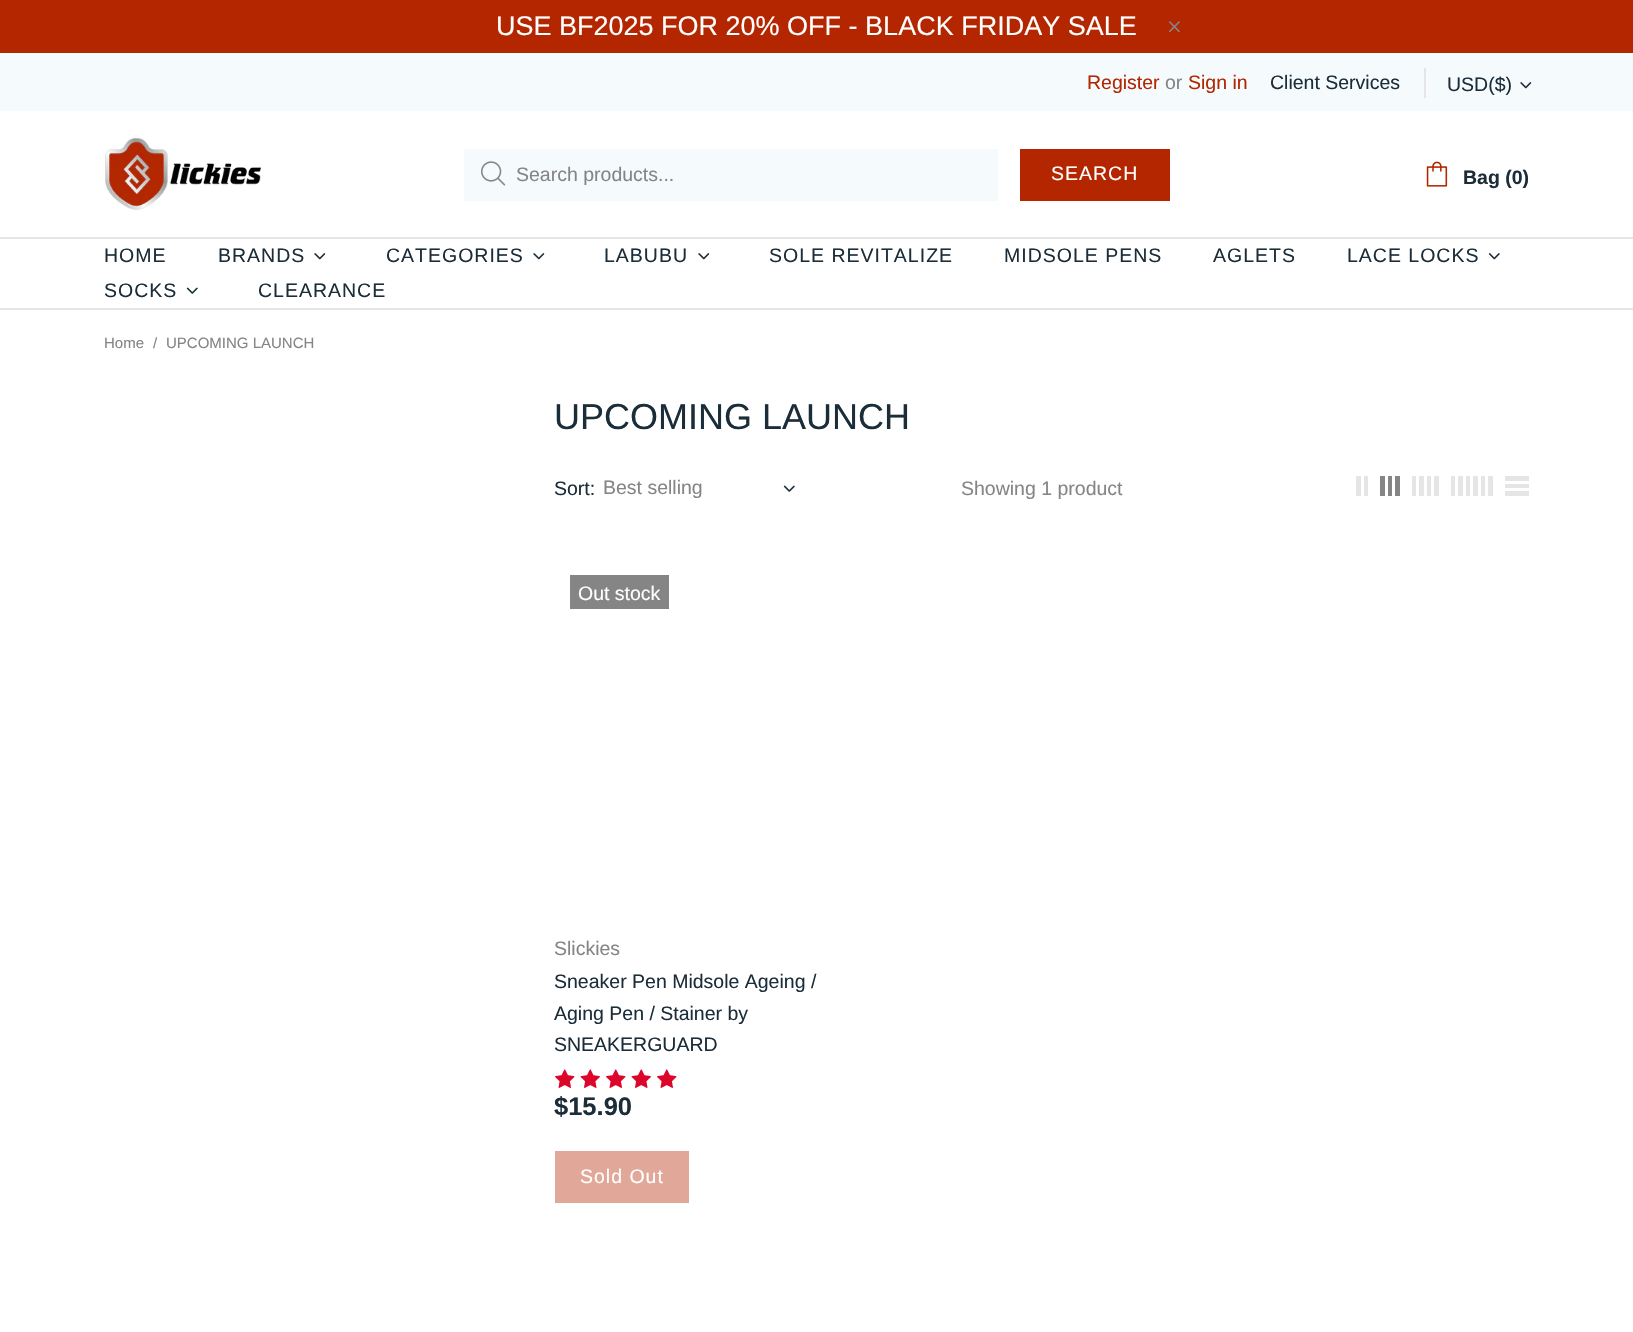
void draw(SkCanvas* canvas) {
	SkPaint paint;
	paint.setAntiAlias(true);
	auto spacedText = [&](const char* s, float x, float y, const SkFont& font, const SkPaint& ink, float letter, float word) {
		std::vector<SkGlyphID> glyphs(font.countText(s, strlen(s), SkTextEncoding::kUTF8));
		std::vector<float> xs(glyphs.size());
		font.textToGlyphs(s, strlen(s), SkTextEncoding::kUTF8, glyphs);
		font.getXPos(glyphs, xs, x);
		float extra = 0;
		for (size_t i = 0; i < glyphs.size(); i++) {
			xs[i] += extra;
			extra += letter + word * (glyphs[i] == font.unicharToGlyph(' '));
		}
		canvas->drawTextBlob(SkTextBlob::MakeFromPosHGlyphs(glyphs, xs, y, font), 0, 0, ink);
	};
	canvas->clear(0xffffffff);
	paint.setColor(0xffb32600);
	canvas->drawRect(SkRect::MakeXYWH(0, 0, 1633, 53), paint);
	SkFont f1(fontMgr->matchFamilyStyle("Liberation Sans", SkFontStyle::Normal()), 27);
	f1.setSubpixel(true);
	paint.setColor(0xffffffff);
	canvas->drawString("USE BF2025 FOR 20% OFF - BLACK FRIDAY SALE", 496, 35, f1, paint);
	canvas->drawImageRect(SkImages::DeferredFromEncodedData(SkData::MakeFromFileName("img1.png")), SkRect::MakeXYWH(1169, 21, 11, 12), SkSamplingOptions());
	paint.setColor(0xfff5fafd);
	canvas->drawRect(SkRect::MakeXYWH(0, 53, 1633, 58), paint);
	SkFont f2(fontMgr->matchFamilyStyle("Liberation Sans", SkFontStyle::Normal()), 19.5);
	f2.setSubpixel(true);
	paint.setColor(0xffb32600);
	canvas->drawString("Register", 1087, 89, f2, paint);
	paint.setColor(0xff858585);
	canvas->drawString("or", 1165, 89, f2, paint);
	paint.setColor(0xffb32600);
	canvas->drawString("Sign in", 1188, 89, f2, paint);
	paint.setColor(0xff1b2d39);
	canvas->drawString("Client Services", 1270, 89, f2, paint);
	paint.setColor(0xffe5e5e5);
	canvas->drawRect(SkRect::MakeXYWH(1424, 68, 2, 30), paint);
	paint.setColor(0xff1b2d39);
	canvas->drawString("USD($)", 1447, 91, f2, paint);
	canvas->drawImageRect(SkImages::DeferredFromEncodedData(SkData::MakeFromFileName("img2.png")), SkRect::MakeXYWH(1520, 82, 12, 7), SkSamplingOptions());
	paint.setColor(0xffe5e5e5);
	canvas->drawRect(SkRect::MakeXYWH(0, 237, 1633, 2), paint);
	canvas->drawImageRect(SkImages::DeferredFromEncodedData(SkData::MakeFromFileName("img3.png")), SkRect::MakeXYWH(105, 138, 156, 72), SkSamplingOptions());
	paint.setColor(0xfff5fafd);
	canvas->drawRect(SkRect::MakeXYWH(464, 149, 534, 52), paint);
	canvas->drawImageRect(SkImages::DeferredFromEncodedData(SkData::MakeFromFileName("img4.png")), SkRect::MakeXYWH(481, 161, 25, 25), SkSamplingOptions());
	paint.setColor(0xff858585);
	canvas->drawString("Search products...", 516, 181, f2, paint);
	paint.setColor(0xffb32600);
	canvas->drawRect(SkRect::MakeXYWH(1020, 149, 150, 52), paint);
	paint.setColor(0xffffffff);
	spacedText("SEARCH", 1051, 180, f2, paint, 1, 0);
	canvas->drawImageRect(SkImages::DeferredFromEncodedData(SkData::MakeFromFileName("img5.png")), SkRect::MakeXYWH(1426, 161, 22, 26), SkSamplingOptions());
	SkFont f3(fontMgr->matchFamilyStyle("Liberation Sans", SkFontStyle::Bold()), 19.5);
	f3.setSubpixel(true);
	paint.setColor(0xff1b2d39);
	canvas->drawString("Bag (0)", 1463, 184, f3, paint);
	paint.setColor(0xffe5e5e5);
	canvas->drawRect(SkRect::MakeXYWH(0, 308, 1633, 2), paint);
	paint.setColor(0xff1b2d39);
	spacedText("HOME", 104, 262, f2, paint, 1, 0);
	spacedText("BRANDS", 218, 262, f2, paint, 1, 0);
	canvas->drawImageRect(SkImages::DeferredFromEncodedData(SkData::MakeFromFileName("img6.png")), SkRect::MakeXYWH(314, 253, 12, 7), SkSamplingOptions());
	spacedText("CATEGORIES", 386, 262, f2, paint, 1, 0);
	canvas->drawImageRect(SkImages::DeferredFromEncodedData(SkData::MakeFromFileName("img6.png")), SkRect::MakeXYWH(533, 253, 12, 7), SkSamplingOptions());
	spacedText("LABUBU", 604, 262, f2, paint, 1, 0);
	canvas->drawImageRect(SkImages::DeferredFromEncodedData(SkData::MakeFromFileName("img6.png")), SkRect::MakeXYWH(698, 253, 12, 7), SkSamplingOptions());
	spacedText("SOLE REVITALIZE", 769, 262, f2, paint, 1, 0);
	spacedText("MIDSOLE PENS", 1004, 262, f2, paint, 1, 0);
	spacedText("AGLETS", 1213, 262, f2, paint, 1, 0);
	spacedText("LACE LOCKS", 1347, 262, f2, paint, 1, 0);
	canvas->drawImageRect(SkImages::DeferredFromEncodedData(SkData::MakeFromFileName("img7.png")), SkRect::MakeXYWH(1488, 253, 12, 7), SkSamplingOptions());
	spacedText("SOCKS", 104, 297, f2, paint, 1, 0);
	canvas->drawImageRect(SkImages::DeferredFromEncodedData(SkData::MakeFromFileName("img8.png")), SkRect::MakeXYWH(186, 287, 12, 7), SkSamplingOptions());
	spacedText("CLEARANCE", 258, 297, f2, paint, 1, 0);
	SkFont f4(fontMgr->matchFamilyStyle("Liberation Sans", SkFontStyle::Normal()), 15);
	f4.setSubpixel(true);
	paint.setColor(0xff858585);
	canvas->drawString("Home", 104, 348, f4, paint);
	canvas->drawString("/", 153, 348, f4, paint);
	canvas->drawString("UPCOMING LAUNCH", 166, 348, f4, paint);
	SkFont f5(fontMgr->matchFamilyStyle("Liberation Sans", SkFontStyle::Normal()), 36);
	f5.setSubpixel(true);
	paint.setColor(0xff1b2d39);
	canvas->drawString("UPCOMING LAUNCH", 554, 429, f5, paint);
	canvas->drawString("Sort:", 554, 495, f2, paint);
	paint.setColor(0xff858585);
	canvas->drawString("Best selling", 603, 494, f2, paint);
	canvas->drawImageRect(SkImages::DeferredFromEncodedData(SkData::MakeFromFileName("img8.png")), SkRect::MakeXYWH(783, 485, 12, 7), SkSamplingOptions());
	canvas->drawString("Showing 1 product", 961, 495, f2, paint);
	paint.setColor(0xffe5e5e5);
	canvas->drawRect(SkRect::MakeXYWH(1356, 476, 5, 20), paint);
	canvas->drawRect(SkRect::MakeXYWH(1364, 476, 4, 20), paint);
	paint.setColor(0xff858585);
	canvas->drawRect(SkRect::MakeXYWH(1380, 476, 5, 20), paint);
	canvas->drawRect(SkRect::MakeXYWH(1388, 476, 4, 20), paint);
	canvas->drawRect(SkRect::MakeXYWH(1395, 476, 5, 20), paint);
	paint.setColor(0xffe5e5e5);
	canvas->drawRect(SkRect::MakeXYWH(1412, 476, 4, 20), paint);
	canvas->drawRect(SkRect::MakeXYWH(1419, 476, 5, 20), paint);
	canvas->drawRect(SkRect::MakeXYWH(1427, 476, 4, 20), paint);
	canvas->drawRect(SkRect::MakeXYWH(1434, 476, 5, 20), paint);
	canvas->drawRect(SkRect::MakeXYWH(1451, 476, 4, 20), paint);
	canvas->drawRect(SkRect::MakeXYWH(1458, 476, 5, 20), paint);
	canvas->drawRect(SkRect::MakeXYWH(1466, 476, 4, 20), paint);
	canvas->drawRect(SkRect::MakeXYWH(1481, 476, 4, 20), paint);
	canvas->drawRect(SkRect::MakeXYWH(1473, 476, 5, 20), paint);
	canvas->drawRect(SkRect::MakeXYWH(1488, 476, 5, 20), paint);
	canvas->drawRect(SkRect::MakeXYWH(1505, 476, 24, 5), paint);
	canvas->drawRect(SkRect::MakeXYWH(1505, 484, 24, 4), paint);
	canvas->drawRect(SkRect::MakeXYWH(1505, 491, 24, 5), paint);
	paint.setColor(0xff858585);
	canvas->drawRect(SkRect::MakeXYWH(570, 575, 99, 34), paint);
	paint.setColor(0xffffffff);
	canvas->drawString("Out stock", 578, 600, f2, paint);
	paint.setColor(0xff858585);
	canvas->drawString("Slickies", 554, 955, f2, paint);
	paint.setColor(0xff1b2d39);
	canvas->drawString("Sneaker Pen Midsole Ageing /", 554, 988, f2, paint);
	canvas->drawString("Aging Pen / Stainer by", 554, 1020, f2, paint);
	canvas->drawString("SNEAKERGUARD", 554, 1051, f2, paint);
	canvas->drawImageRect(SkImages::DeferredFromEncodedData(SkData::MakeFromFileName("img9.png")), SkRect::MakeXYWH(555, 1069, 20, 19), SkSamplingOptions());
	canvas->drawImageRect(SkImages::DeferredFromEncodedData(SkData::MakeFromFileName("img10.png")), SkRect::MakeXYWH(580, 1069, 20, 19), SkSamplingOptions());
	canvas->drawImageRect(SkImages::DeferredFromEncodedData(SkData::MakeFromFileName("img9.png")), SkRect::MakeXYWH(606, 1069, 20, 19), SkSamplingOptions());
	canvas->drawImageRect(SkImages::DeferredFromEncodedData(SkData::MakeFromFileName("img10.png")), SkRect::MakeXYWH(631, 1069, 20, 19), SkSamplingOptions());
	canvas->drawImageRect(SkImages::DeferredFromEncodedData(SkData::MakeFromFileName("img9.png")), SkRect::MakeXYWH(657, 1069, 20, 19), SkSamplingOptions());
	SkFont f6(fontMgr->matchFamilyStyle("Liberation Sans", SkFontStyle::Bold()), 25.5);
	f6.setSubpixel(true);
	canvas->drawString("$15.90", 554, 1115, f6, paint);
	paint.setColor(0xffe1a899);
	canvas->drawRect(SkRect::MakeXYWH(555, 1151, 134, 52), paint);
	paint.setColor(0xffffffff);
	spacedText("Sold Out", 580, 1183, f2, paint, 1, 0);
}
